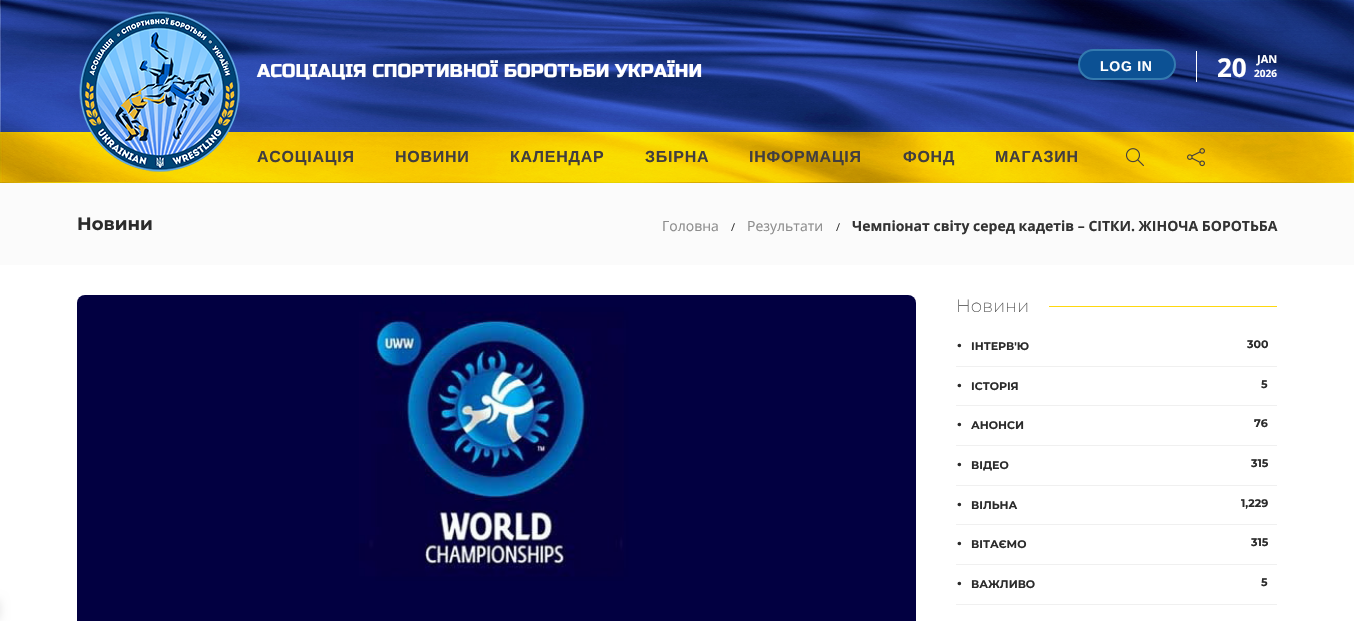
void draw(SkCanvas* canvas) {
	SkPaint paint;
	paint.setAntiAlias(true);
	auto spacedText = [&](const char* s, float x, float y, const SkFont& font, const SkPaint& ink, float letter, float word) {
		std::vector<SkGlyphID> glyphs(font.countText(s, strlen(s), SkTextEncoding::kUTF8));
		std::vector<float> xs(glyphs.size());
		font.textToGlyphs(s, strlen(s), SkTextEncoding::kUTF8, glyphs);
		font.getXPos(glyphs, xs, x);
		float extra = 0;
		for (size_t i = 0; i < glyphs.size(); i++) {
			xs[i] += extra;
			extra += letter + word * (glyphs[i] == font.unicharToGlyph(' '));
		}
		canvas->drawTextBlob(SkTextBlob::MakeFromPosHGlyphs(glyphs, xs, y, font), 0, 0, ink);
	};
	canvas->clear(0xffffffff);
	canvas->drawImageRect(SkImages::DeferredFromEncodedData(SkData::MakeFromFileName("img1.png")), SkRect::MakeXYWH(0, 0, 1354, 132), SkSamplingOptions());
	SkFont f1(fontMgr->matchFamilyStyle("Russo One", SkFontStyle::Normal()), 18.7);
	f1.setSubpixel(true);
	paint.setColor(0xffffffff);
	canvas->drawString("АСОЦІАЦІЯ СПОРТИВНОЇ БОРОТЬБИ УКРАЇНИ", 257, 77, f1, paint);
	canvas->drawRect(SkRect::MakeXYWH(1196, 51, 1, 31), paint);
	paint.setColor(0xff0c5194);
	canvas->drawRoundRect(SkRect::MakeXYWH(1079, 50, 96, 29), 14.5, 14.5, paint);
	paint.setStroke(true);
	paint.setStrokeWidth(2);
	paint.setColor(0xff347aaf);
	canvas->drawRoundRect(SkRect::MakeXYWH(1079, 50, 96, 29), 14.5, 14.5, paint);
	SkFont f2(fontMgr->matchFamilyStyle("Liberation Sans", SkFontStyle::Bold()), 14);
	f2.setSubpixel(true);
	paint.setStroke(false);
	paint.setColor(0xffffffff);
	spacedText("LOG IN", 1100, 71, f2, paint, 0.75, 0);
	SkFont f3(fontMgr->matchFamilyStyle("Open Sans", SkFontStyle::Bold()), 26);
	f3.setSubpixel(true);
	canvas->drawString("20", 1217, 77, f3, paint);
	SkFont f4(fontMgr->matchFamilyStyle("Open Sans", SkFontStyle::Bold()), 11);
	f4.setSubpixel(true);
	canvas->drawString("JAN", 1257, 63, f4, paint);
	SkFont f5(fontMgr->matchFamilyStyle("Open Sans", SkFontStyle::Bold()), 10);
	f5.setSubpixel(true);
	canvas->drawString("2026", 1254, 77, f5, paint);
	canvas->drawImageRect(SkImages::DeferredFromEncodedData(SkData::MakeFromFileName("img2.png")), SkRect::MakeXYWH(0, 132, 1354, 51), SkSamplingOptions());
	paint.setColor(0x14000000);
	canvas->drawRect(SkRect::MakeXYWH(0, 182, 1354, 1), paint);
	canvas->drawImageRect(SkImages::DeferredFromEncodedData(SkData::MakeFromFileName("img3.png")), SkRect::MakeXYWH(79, 11, 161, 161), SkSamplingOptions());
	SkFont f6(fontMgr->matchFamilyStyle("Liberation Sans", SkFontStyle::Bold()), 16);
	f6.setSubpixel(true);
	paint.setColor(0xff423e3e);
	spacedText("АСОЦІАЦІЯ", 257, 162, f6, paint, 0.75, 0);
	spacedText("НОВИНИ", 395, 162, f6, paint, 0.75, 0);
	spacedText("КАЛЕНДАР", 510, 162, f6, paint, 0.75, 0);
	spacedText("ЗБІРНА", 645, 162, f6, paint, 0.75, 0);
	spacedText("ІНФОРМАЦІЯ", 749, 162, f6, paint, 0.75, 0);
	spacedText("ФОНД", 903, 162, f6, paint, 0.75, 0);
	spacedText("МАГАЗИН", 995, 162, f6, paint, 0.75, 0);
	canvas->drawImageRect(SkImages::DeferredFromEncodedData(SkData::MakeFromFileName("img4.png")), SkRect::MakeXYWH(1125, 148, 19, 19), SkSamplingOptions());
	canvas->drawImageRect(SkImages::DeferredFromEncodedData(SkData::MakeFromFileName("img5.png")), SkRect::MakeXYWH(1187, 148, 18, 19), SkSamplingOptions());
	paint.setColor(0xfffbfbfb);
	canvas->drawRect(SkRect::MakeXYWH(0, 183, 1354, 82), paint);
	SkFont f7(fontMgr->matchFamilyStyle("Montserrat", SkFontStyle::Bold()), 18);
	f7.setSubpixel(true);
	paint.setColor(0xff2b2b2b);
	canvas->drawString("Новини", 77, 230, f7, paint);
	SkFont f8(fontMgr->matchFamilyStyle("Open Sans", SkFontStyle::Normal()), 14);
	f8.setSubpixel(true);
	paint.setColor(0xff8d8d8d);
	canvas->drawString("Головна", 662, 231, f8, paint);
	SkFont f9(fontMgr->matchFamilyStyle("Open Sans", SkFontStyle::Normal()), 11);
	f9.setSubpixel(true);
	paint.setColor(0xff333333);
	canvas->drawString("/", 731, 231, f9, paint);
	paint.setColor(0xff8d8d8d);
	canvas->drawString("Результати", 747, 231, f8, paint);
	paint.setColor(0xff333333);
	canvas->drawString("/", 836, 231, f9, paint);
	SkFont f10(fontMgr->matchFamilyStyle("Open Sans", SkFontStyle::Bold()), 14);
	f10.setSubpixel(true);
	canvas->drawString("Чемпіонат світу серед кадетів – СІТКИ. ЖІНОЧА БОРОТЬБА", 852, 231, f10, paint);
	canvas->drawImageRect(SkImages::DeferredFromEncodedData(SkData::MakeFromFileName("img6.png")), SkRect::MakeXYWH(77, 295, 839, 326), SkSamplingOptions());
	SkFont f11(fontMgr->matchFamilyStyle("Montserrat", SkFontStyle(200, SkFontStyle::kNormal_Width, SkFontStyle::kUpright_Slant)), 18);
	f11.setSubpixel(true);
	paint.setColor(0xff505050);
	canvas->drawString("Новини", 956, 312, f11, paint);
	paint.setColor(0xffffd80f);
	canvas->drawRect(SkRect::MakeXYWH(1049, 306, 228, 1), paint);
	paint.setColor(0xfff0f0f0);
	canvas->drawRect(SkRect::MakeXYWH(956, 366, 321, 1), paint);
	paint.setColor(0xff2b2b2b);
	canvas->drawString(".", 957, 347, f7, paint);
	SkFont f12(fontMgr->matchFamilyStyle("Montserrat", SkFontStyle::Bold()), 11);
	f12.setSubpixel(true);
	canvas->drawString("ІНТЕРВ'Ю", 971, 350, f12, paint);
	canvas->drawString("300", 1247, 348, f12, paint);
	paint.setColor(0xfff0f0f0);
	canvas->drawRect(SkRect::MakeXYWH(956, 405, 321, 1), paint);
	paint.setColor(0xff2b2b2b);
	canvas->drawString(".", 957, 387, f7, paint);
	canvas->drawString("ІСТОРІЯ", 971, 390, f12, paint);
	canvas->drawString("5", 1261, 388, f12, paint);
	paint.setColor(0xfff0f0f0);
	canvas->drawRect(SkRect::MakeXYWH(956, 445, 321, 1), paint);
	paint.setColor(0xff2b2b2b);
	canvas->drawString(".", 957, 426, f7, paint);
	canvas->drawString("АНОНСИ", 971, 429, f12, paint);
	canvas->drawString("76", 1254, 427, f12, paint);
	paint.setColor(0xfff0f0f0);
	canvas->drawRect(SkRect::MakeXYWH(956, 485, 321, 1), paint);
	paint.setColor(0xff2b2b2b);
	canvas->drawString(".", 957, 466, f7, paint);
	canvas->drawString("ВІДЕО", 971, 469, f12, paint);
	canvas->drawString("315", 1251, 467, f12, paint);
	paint.setColor(0xfff0f0f0);
	canvas->drawRect(SkRect::MakeXYWH(956, 524, 321, 1), paint);
	paint.setColor(0xff2b2b2b);
	canvas->drawString(".", 957, 506, f7, paint);
	canvas->drawString("ВІЛЬНА", 971, 509, f12, paint);
	canvas->drawString("1,229", 1241, 507, f12, paint);
	paint.setColor(0xfff0f0f0);
	canvas->drawRect(SkRect::MakeXYWH(956, 564, 321, 1), paint);
	paint.setColor(0xff2b2b2b);
	canvas->drawString(".", 957, 545, f7, paint);
	canvas->drawString("ВІТАЄМО", 971, 548, f12, paint);
	canvas->drawString("315", 1251, 546, f12, paint);
	paint.setColor(0xfff0f0f0);
	canvas->drawRect(SkRect::MakeXYWH(956, 604, 321, 1), paint);
	paint.setColor(0xff2b2b2b);
	canvas->drawString(".", 957, 585, f7, paint);
	canvas->drawString("ВАЖЛИВО", 971, 588, f12, paint);
	canvas->drawString("5", 1261, 586, f12, paint);
	paint.setColor(0x1a000000);
	paint.setMaskFilter(SkMaskFilter::MakeBlur(kNormal_SkBlurStyle, 5));
	canvas->drawRect(SkRect::MakeXYWH(-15, 600, 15, 20), paint);
	paint.setMaskFilter(nullptr);
}
